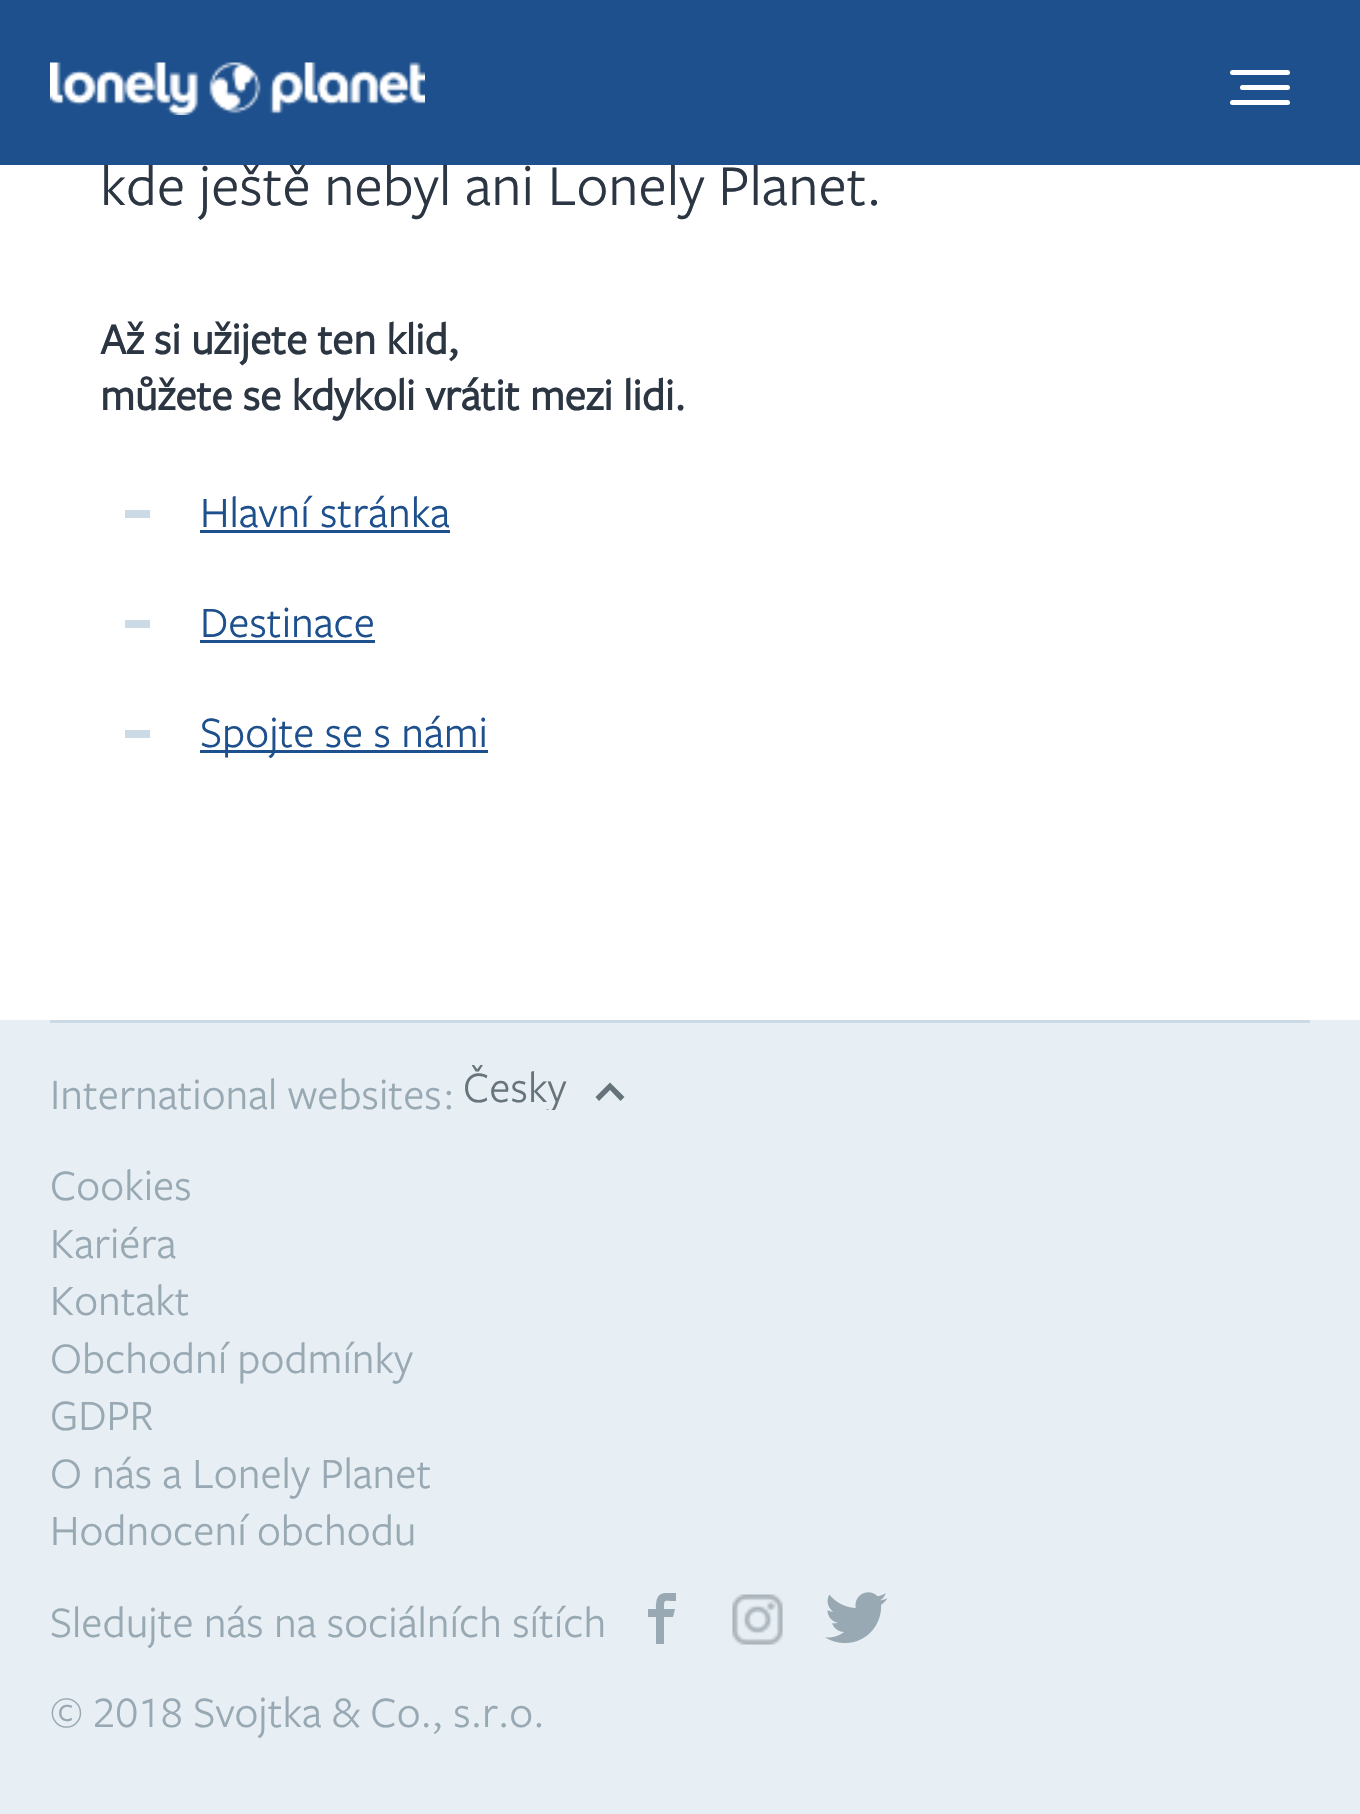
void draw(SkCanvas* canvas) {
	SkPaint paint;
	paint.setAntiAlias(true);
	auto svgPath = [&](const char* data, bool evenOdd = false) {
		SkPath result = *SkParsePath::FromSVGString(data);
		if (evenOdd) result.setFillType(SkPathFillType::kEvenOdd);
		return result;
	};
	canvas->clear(0xffe7eff4);
	paint.setColor(0xffffffff);
	canvas->drawRect(SkRect::MakeXYWH(0, 165, 1360, 855), paint);
	SkFont f1(fontMgr->matchFamilyStyle("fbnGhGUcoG", SkFontStyle::Normal()), 60);
	f1.setSubpixel(true);
	paint.setColor(0xff2c3643);
	canvas->drawString("kde ještě nebyl ani Lonely Planet.", 100, 205, f1, paint);
	paint.setColor(0xff1d508d);
	canvas->drawRect(SkRect::MakeXYWH(0, 0, 1360, 165), paint);
	canvas->drawImageRect(SkImages::DeferredFromEncodedData(SkData::MakeFromFileName("img1.png")), SkRect::MakeXYWH(50, 62, 375, 53), SkSamplingOptions());
	paint.setColor(0xffffffff);
	canvas->drawRoundRect(SkRect::MakeXYWH(1230, 70, 60, 5), 2.5, 2.5, paint);
	canvas->drawRoundRect(SkRect::MakeXYWH(1240, 85, 50, 5), 2.5, 2.5, paint);
	canvas->drawRoundRect(SkRect::MakeXYWH(1230, 100, 60, 5), 2.5, 2.5, paint);
	SkFont f2(fontMgr->matchFamilyStyle("fbnGhGUcoG", SkFontStyle::Bold()), 45);
	f2.setSubpixel(true);
	paint.setColor(0xff2c3643);
	canvas->drawString("Až si užijete ten klid,", 100, 354, f2, paint);
	canvas->drawString("můžete se kdykoli vrátit mezi lidi.", 100, 410, f2, paint);
	paint.setColor(0xffccdae5);
	canvas->drawRect(SkRect::MakeXYWH(125, 510, 25, 8), paint);
	SkFont f3(fontMgr->matchFamilyStyle("fbnGhGUcoG", SkFontStyle::Normal()), 45);
	f3.setSubpixel(true);
	paint.setColor(0xff1d508d);
	canvas->drawString("Hlavní stránka", 200, 527, f3, paint);
	canvas->drawRect(SkRect::MakeXYWH(200, 530, 250, 3), paint);
	paint.setColor(0xffccdae5);
	canvas->drawRect(SkRect::MakeXYWH(125, 620, 25, 8), paint);
	paint.setColor(0xff1d508d);
	canvas->drawString("Destinace", 200, 637, f3, paint);
	canvas->drawRect(SkRect::MakeXYWH(200, 640, 175, 3), paint);
	paint.setColor(0xffccdae5);
	canvas->drawRect(SkRect::MakeXYWH(125, 730, 25, 8), paint);
	paint.setColor(0xff1d508d);
	canvas->drawRect(SkRect::MakeXYWH(200, 750, 288, 3), paint);
	canvas->drawString("Spojte se s námi", 200, 747, f3, paint);
	paint.setColor(0xffccdae5);
	canvas->drawRect(SkRect::MakeXYWH(50, 1020, 1260, 3), paint);
	paint.setColor(0xff99a9b3);
	canvas->drawString("International websites:", 50, 1109, f3, paint);
	canvas->save();
	canvas->clipRect(SkRect::MakeXYWH(463, 1065, 167, 45));
	paint.setColor(0xff67747c);
	canvas->drawString("Česky", 463, 1102, f3, paint);
	canvas->restore();
	paint.setColor(0xff67737b);
	canvas->drawPath(svgPath("M595.5 1097L610 1082.5L624.5 1097L620.5 1101L610 1090L599 1101L595.5 1097"), paint);
	paint.setColor(0xff99a9b3);
	canvas->drawString("Cookies", 50, 1200, f3, paint);
	canvas->drawString("Kariéra", 50, 1258, f3, paint);
	canvas->drawString("Kontakt", 50, 1315, f3, paint);
	canvas->drawString("Obchodní podmínky", 50, 1373, f3, paint);
	canvas->drawString("GDPR", 50, 1430, f3, paint);
	canvas->drawString("O nás a Lonely Planet", 50, 1488, f3, paint);
	canvas->drawString("Hodnocení obchodu", 50, 1545, f3, paint);
	canvas->drawString("Sledujte nás na sociálních sítích", 50, 1637, f3, paint);
	canvas->drawPath(svgPath("M666 1593C656 1593 656 1602 656 1609H648V1617H656V1644H664V1617H673L675 1609H664C664 1598 664 1601 676 1601V1593Z"), paint);
	canvas->drawImageRect(SkImages::DeferredFromEncodedData(SkData::MakeFromFileName("img2.png")), SkRect::MakeXYWH(732, 1594, 51, 51), SkSamplingOptions());
	canvas->drawImageRect(SkImages::DeferredFromEncodedData(SkData::MakeFromFileName("img3.png")), SkRect::MakeXYWH(825, 1592, 63, 51), SkSamplingOptions());
	canvas->drawString("© 2018 Svojtka & Co., s.r.o.", 50, 1727, f3, paint);
}
